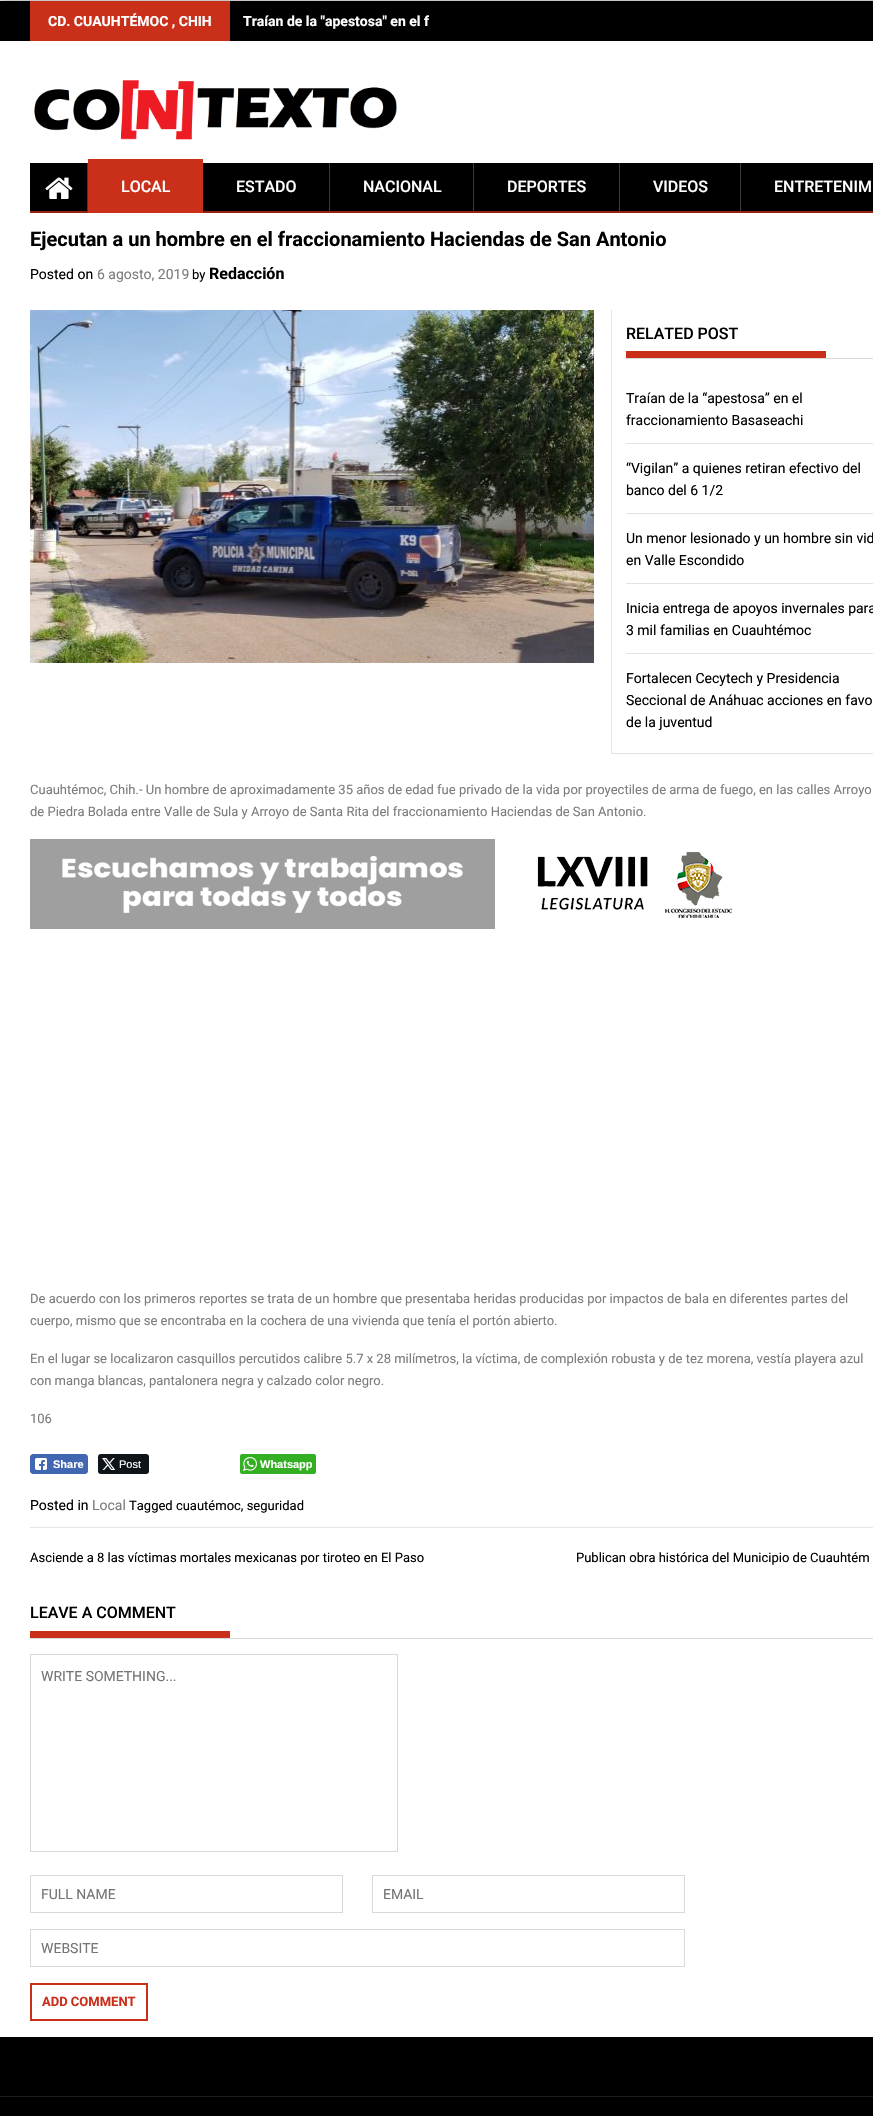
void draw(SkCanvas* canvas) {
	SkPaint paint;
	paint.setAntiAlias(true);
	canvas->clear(0xffeeeeef);
	paint.setColor(0xff999999);
	paint.setMaskFilter(SkMaskFilter::MakeBlur(kNormal_SkBlurStyle, 6));
	canvas->drawRect(SkRect::MakeXYWH(0, 1, 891, 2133), paint);
	paint.setMaskFilter(nullptr);
	paint.setColor(0xffffffff);
	canvas->drawRect(SkRect::MakeXYWH(0, 41, 873, 1996), paint);
	paint.setColor(0xff000000);
	canvas->drawRect(SkRect::MakeXYWH(0, 1, 873, 40), paint);
	paint.setColor(0xffca2f1a);
	canvas->drawRect(SkRect::MakeXYWH(30, 1, 200, 40), paint);
	SkFont f1(fontMgr->matchFamilyStyle("Roboto", SkFontStyle::Bold()), 14);
	f1.setSubpixel(true);
	paint.setColor(0xffffffff);
	canvas->drawString("CD. CUAUHTÉMOC , CHIH", 48, 26, f1, paint);
	canvas->drawString("Traían de la \"apestosa\" en el f", 243, 26, f1, paint);
	canvas->drawImageRect(SkImages::DeferredFromEncodedData(SkData::MakeFromFileName("img1.png")), SkRect::MakeXYWH(34, 80, 363, 60), SkSamplingOptions());
	paint.setColor(0xff000000);
	canvas->drawRect(SkRect::MakeXYWH(30, 163, 57, 48), paint);
	paint.setColor(0xff932213);
	canvas->drawRect(SkRect::MakeXYWH(30, 211, 58, 2), paint);
	canvas->drawImageRect(SkImages::DeferredFromEncodedData(SkData::MakeFromFileName("img2.png")), SkRect::MakeXYWH(87, 163, 1, 48), SkSamplingOptions());
	canvas->drawImageRect(SkImages::DeferredFromEncodedData(SkData::MakeFromFileName("img3.png")), SkRect::MakeXYWH(45, 177, 28, 22), SkSamplingOptions());
	paint.setColor(0xffca2f1a);
	canvas->drawRect(SkRect::MakeXYWH(88, 159, 115, 54), paint);
	SkFont f2(fontMgr->matchFamilyStyle("Roboto", SkFontStyle(500, SkFontStyle::kNormal_Width, SkFontStyle::kUpright_Slant)), 16);
	f2.setSubpixel(true);
	paint.setColor(0xffffffff);
	canvas->drawString("LOCAL", 121, 192, f2, paint);
	paint.setColor(0xff000000);
	canvas->drawRect(SkRect::MakeXYWH(203, 163, 126, 48), paint);
	canvas->drawImageRect(SkImages::DeferredFromEncodedData(SkData::MakeFromFileName("img2.png")), SkRect::MakeXYWH(329, 163, 1, 48), SkSamplingOptions());
	paint.setColor(0xff932213);
	canvas->drawRect(SkRect::MakeXYWH(203, 211, 670, 2), paint);
	paint.setColor(0xffffffff);
	canvas->drawString("ESTADO", 236, 192, f2, paint);
	paint.setColor(0xff000000);
	canvas->drawRect(SkRect::MakeXYWH(330, 163, 143, 48), paint);
	canvas->drawImageRect(SkImages::DeferredFromEncodedData(SkData::MakeFromFileName("img2.png")), SkRect::MakeXYWH(473, 163, 1, 48), SkSamplingOptions());
	paint.setColor(0xffffffff);
	canvas->drawString("NACIONAL", 363, 192, f2, paint);
	paint.setColor(0xff000000);
	canvas->drawRect(SkRect::MakeXYWH(474, 163, 145, 48), paint);
	canvas->drawImageRect(SkImages::DeferredFromEncodedData(SkData::MakeFromFileName("img2.png")), SkRect::MakeXYWH(619, 163, 1, 48), SkSamplingOptions());
	paint.setColor(0xffffffff);
	canvas->drawString("DEPORTES", 507, 192, f2, paint);
	paint.setColor(0xff000000);
	canvas->drawRect(SkRect::MakeXYWH(620, 163, 120, 48), paint);
	canvas->drawImageRect(SkImages::DeferredFromEncodedData(SkData::MakeFromFileName("img2.png")), SkRect::MakeXYWH(740, 163, 1, 48), SkSamplingOptions());
	paint.setColor(0xffffffff);
	canvas->drawString("VIDEOS", 653, 192, f2, paint);
	paint.setColor(0xff000000);
	canvas->drawRect(SkRect::MakeXYWH(741, 163, 132, 48), paint);
	paint.setColor(0xffffffff);
	canvas->drawString("ENTRETENIM", 774, 192, f2, paint);
	paint.setColor(0xffe5e5e5);
	canvas->drawRect(SkRect::MakeXYWH(30, 1527, 843, 1), paint);
	SkFont f3(fontMgr->matchFamilyStyle("Roboto", SkFontStyle::Bold()), 20);
	f3.setSubpixel(true);
	paint.setColor(0xff000000);
	canvas->drawString("Ejecutan a un hombre en el fraccionamiento Haciendas de San Antonio", 30, 246, f3, paint);
	SkFont f4(fontMgr->matchFamilyStyle("Roboto", SkFontStyle::Normal()), 14);
	f4.setSubpixel(true);
	canvas->drawString("Posted on", 30, 279, f4, paint);
	paint.setColor(0xff7c7c7c);
	canvas->drawString("6 agosto, 2019", 97, 279, f4, paint);
	SkFont f5(fontMgr->matchFamilyStyle("Roboto", SkFontStyle::Normal()), 13);
	f5.setSubpixel(true);
	paint.setColor(0xff000000);
	canvas->drawString("by", 192, 279, f5, paint);
	SkFont f6(fontMgr->matchFamilyStyle("Roboto", SkFontStyle::Bold()), 16);
	f6.setSubpixel(true);
	canvas->drawString("Redacción", 209, 279, f6, paint);
	canvas->drawImageRect(SkImages::DeferredFromEncodedData(SkData::MakeFromFileName("img4.png")), SkRect::MakeXYWH(30, 310, 564, 353), SkSamplingOptions());
	paint.setColor(0xffe3e3e3);
	canvas->drawRect(SkRect::MakeXYWH(611, 753, 262, 1), paint);
	canvas->drawRect(SkRect::MakeXYWH(611, 310, 1, 444), paint);
	paint.setColor(0xffd9d9d9);
	canvas->drawRect(SkRect::MakeXYWH(626, 358, 247, 1), paint);
	paint.setColor(0xff000000);
	canvas->drawString("RELATED POST", 626, 339, f2, paint);
	paint.setColor(0xffca2f1a);
	canvas->drawRect(SkRect::MakeXYWH(626, 351, 200, 7), paint);
	paint.setColor(0xffe3e3e3);
	canvas->drawRect(SkRect::MakeXYWH(626, 443, 247, 1), paint);
	paint.setColor(0xff000000);
	canvas->drawString("Traían de la “apestosa” en el", 626, 403, f4, paint);
	canvas->drawString("fraccionamiento Basaseachi", 626, 425, f4, paint);
	paint.setColor(0xffe3e3e3);
	canvas->drawRect(SkRect::MakeXYWH(626, 513, 247, 1), paint);
	paint.setColor(0xff000000);
	canvas->drawString("“Vigilan” a quienes retiran efectivo del", 626, 473, f4, paint);
	canvas->drawString("banco del 6 1/2", 626, 495, f4, paint);
	paint.setColor(0xffe3e3e3);
	canvas->drawRect(SkRect::MakeXYWH(626, 583, 247, 1), paint);
	paint.setColor(0xff000000);
	canvas->drawString("Un menor lesionado y un hombre sin vid", 626, 543, f4, paint);
	canvas->drawString("en Valle Escondido", 626, 565, f4, paint);
	paint.setColor(0xffe3e3e3);
	canvas->drawRect(SkRect::MakeXYWH(626, 653, 247, 1), paint);
	paint.setColor(0xff000000);
	canvas->drawString("Inicia entrega de apoyos invernales para", 626, 613, f4, paint);
	canvas->drawString("3 mil familias en Cuauhtémoc", 626, 635, f4, paint);
	canvas->drawString("Fortalecen Cecytech y Presidencia", 626, 683, f4, paint);
	canvas->drawString("Seccional de Anáhuac acciones en favo", 626, 705, f4, paint);
	canvas->drawString("de la juventud", 626, 727, f4, paint);
	paint.setColor(0xff7c7c7c);
	canvas->drawString("Cuauhtémoc, Chih.- Un hombre de aproximadamente 35 años de edad fue privado de la vida por proyectiles de arma de fuego, en las calles Arroyo", 30, 794, f5, paint);
	canvas->drawString("de Piedra Bolada entre Valle de Sula y Arroyo de Santa Rita del fraccionamiento Haciendas de San Antonio.", 30, 816, f5, paint);
	canvas->drawImageRect(SkImages::DeferredFromEncodedData(SkData::MakeFromFileName("img5.png")), SkRect::MakeXYWH(30, 839, 702, 90), SkSamplingOptions());
	canvas->drawString("De acuerdo con los primeros reportes se trata de un hombre que presentaba heridas producidas por impactos de bala en diferentes partes del", 30, 1303, f5, paint);
	canvas->drawString("cuerpo, mismo que se encontraba en la cochera de una vivienda que tenía el portón abierto.", 30, 1325, f5, paint);
	canvas->drawString("En el lugar se localizaron casquillos percutidos calibre 5.7 x 28 milímetros, la víctima, de complexión robusta y de tez morena, vestía playera azul", 30, 1363, f5, paint);
	canvas->drawString("con manga blancas, pantalonera negra y calzado color negro.", 30, 1385, f5, paint);
	canvas->drawString("106", 30, 1423, f5, paint);
	paint.setColor(0xff4267b2);
	canvas->drawRoundRect(SkRect::MakeXYWH(30.5, 1454.5, 57, 19), 2.5, 2.5, paint);
	paint.setStroke(true);
	paint.setStrokeWidth(1);
	canvas->drawRoundRect(SkRect::MakeXYWH(30.5, 1454.5, 57, 19), 2.5, 2.5, paint);
	canvas->drawImageRect(SkImages::DeferredFromEncodedData(SkData::MakeFromFileName("img6.png")), SkRect::MakeXYWH(35, 1458, 12, 12), SkSamplingOptions());
	SkFont f7(fontMgr->matchFamilyStyle("Liberation Sans", SkFontStyle::Bold()), 11);
	f7.setSubpixel(true);
	paint.setStroke(false);
	paint.setColor(0xffffffff);
	canvas->drawString("Share", 53, 1468, f7, paint);
	paint.setColor(0xff0f1419);
	canvas->drawRoundRect(SkRect::MakeXYWH(98, 1454, 51, 20), 3, 3, paint);
	canvas->drawImageRect(SkImages::DeferredFromEncodedData(SkData::MakeFromFileName("img7.png")), SkRect::MakeXYWH(102, 1458, 14, 12), SkSamplingOptions());
	SkFont f8(fontMgr->matchFamilyStyle("Liberation Sans", SkFontStyle::Normal()), 11);
	f8.setSubpixel(true);
	paint.setColor(0xffffffff);
	canvas->drawString("Post", 119, 1468, f8, paint);
	paint.setColor(0xff34af23);
	canvas->drawRoundRect(SkRect::MakeXYWH(240, 1454, 76, 20), 2, 2, paint);
	canvas->drawImageRect(SkImages::DeferredFromEncodedData(SkData::MakeFromFileName("img8.png")), SkRect::MakeXYWH(243, 1457, 14, 14), SkSamplingOptions());
	paint.setColor(0xffffffff);
	canvas->drawString("Whatsapp", 260, 1468, f7, paint);
	paint.setColor(0xff000000);
	canvas->drawString("Posted in", 30, 1510, f4, paint);
	paint.setColor(0xff7c7c7c);
	canvas->drawString("Local", 92, 1510, f4, paint);
	paint.setColor(0xff000000);
	canvas->drawString("Tagged cuautémoc, seguridad", 129, 1510, f5, paint);
	canvas->drawString("Asciende a 8 las víctimas mortales mexicanas por tiroteo en El Paso", 30, 1562, f5, paint);
	canvas->drawString("Publican obra histórica del Municipio de Cuauhtém", 576, 1562, f5, paint);
	paint.setColor(0xffd9d9d9);
	canvas->drawRect(SkRect::MakeXYWH(30, 1638, 843, 1), paint);
	paint.setColor(0xff000000);
	canvas->drawString("LEAVE A COMMENT", 30, 1618, f2, paint);
	paint.setColor(0xffca2f1a);
	canvas->drawRect(SkRect::MakeXYWH(30, 1631, 200, 7), paint);
	paint.setStroke(true);
	paint.setColor(0xffd9d9d9);
	canvas->drawRect(SkRect::MakeXYWH(30.5, 1654.5, 367, 197), paint);
	paint.setStroke(false);
	paint.setColor(0xff757575);
	canvas->drawString("WRITE SOMETHING...", 41, 1681, f4, paint);
	paint.setStroke(true);
	paint.setColor(0xffd9d9d9);
	canvas->drawRect(SkRect::MakeXYWH(30.5, 1875.5, 312, 37), paint);
	paint.setStroke(false);
	paint.setColor(0xff757575);
	canvas->drawString("FULL NAME", 41, 1899, f4, paint);
	paint.setStroke(true);
	paint.setColor(0xffd9d9d9);
	canvas->drawRect(SkRect::MakeXYWH(372.5, 1875.5, 312, 37), paint);
	paint.setStroke(false);
	paint.setColor(0xff757575);
	canvas->drawString("EMAIL", 383, 1899, f4, paint);
	paint.setStroke(true);
	paint.setColor(0xffd9d9d9);
	canvas->drawRect(SkRect::MakeXYWH(30.5, 1929.5, 654, 37), paint);
	paint.setStroke(false);
	paint.setColor(0xff757575);
	canvas->drawString("WEBSITE", 41, 1953, f4, paint);
	paint.setStroke(true);
	paint.setStrokeWidth(2);
	paint.setColor(0xffca2f1a);
	canvas->drawRect(SkRect::MakeXYWH(31, 1984, 116, 36), paint);
	SkFont f9(fontMgr->matchFamilyStyle("Roboto", SkFontStyle::Bold()), 13);
	f9.setSubpixel(true);
	paint.setStroke(false);
	canvas->drawString("ADD COMMENT", 42, 2006, f9, paint);
	paint.setColor(0xff000000);
	canvas->drawRect(SkRect::MakeXYWH(0, 2037, 873, 79), paint);
	paint.setColor(0xff1c1c1c);
	canvas->drawRect(SkRect::MakeXYWH(0, 2096, 873, 1), paint);
}
